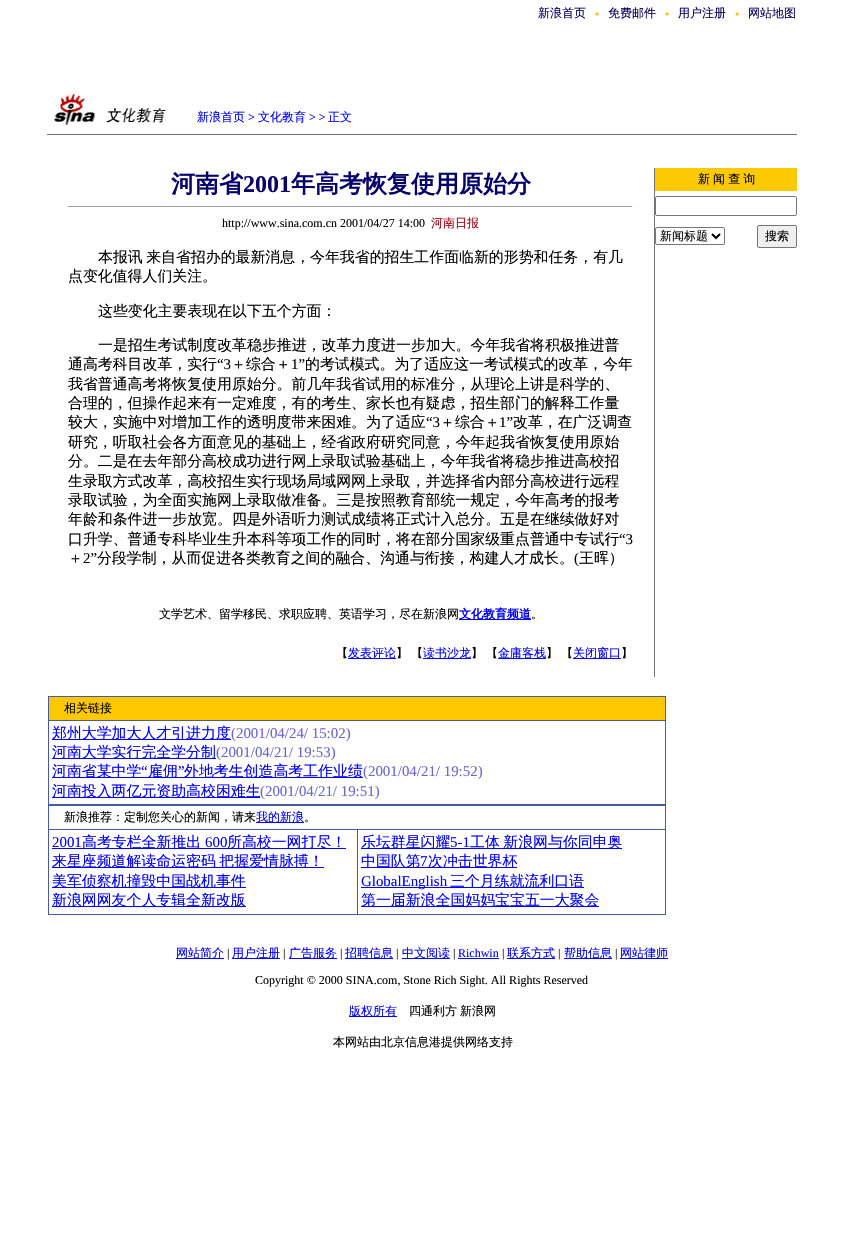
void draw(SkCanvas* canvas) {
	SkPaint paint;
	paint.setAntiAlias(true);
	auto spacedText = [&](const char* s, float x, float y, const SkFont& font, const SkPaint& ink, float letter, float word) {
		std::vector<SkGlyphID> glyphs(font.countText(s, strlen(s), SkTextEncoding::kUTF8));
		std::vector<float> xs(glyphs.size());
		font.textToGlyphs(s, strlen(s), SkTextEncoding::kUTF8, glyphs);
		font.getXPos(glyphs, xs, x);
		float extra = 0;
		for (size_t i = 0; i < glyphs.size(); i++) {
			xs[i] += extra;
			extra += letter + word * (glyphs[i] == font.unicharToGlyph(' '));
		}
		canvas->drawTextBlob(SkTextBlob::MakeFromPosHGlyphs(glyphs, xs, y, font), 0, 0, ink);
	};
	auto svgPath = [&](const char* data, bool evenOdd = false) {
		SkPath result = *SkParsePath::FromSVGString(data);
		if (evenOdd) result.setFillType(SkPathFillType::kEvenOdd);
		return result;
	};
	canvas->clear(0xffffffff);
	SkFont f1(fontMgr->matchFamilyStyle("WenQuanYi Zen Hei", SkFontStyle(500, SkFontStyle::kNormal_Width, SkFontStyle::kUpright_Slant)), 12);
	f1.setSubpixel(true);
	paint.setColor(0xff07015b);
	canvas->drawString("新浪首页", 538, 17, f1, paint);
	SkFont f2(fontMgr->matchFamilyStyle("Liberation Serif", SkFontStyle::Normal()), 7);
	f2.setSubpixel(true);
	paint.setColor(0xffffbd00);
	canvas->drawString("●", 595, 16, f2, paint);
	paint.setColor(0xff07015b);
	canvas->drawString("免费邮件", 608, 17, f1, paint);
	paint.setColor(0xffffbd00);
	canvas->drawString("●", 665, 16, f2, paint);
	paint.setColor(0xff07015b);
	canvas->drawString("用户注册", 678, 17, f1, paint);
	paint.setColor(0xffffbd00);
	canvas->drawString("●", 735, 16, f2, paint);
	paint.setColor(0xff07015b);
	canvas->drawString("网站地图", 748, 17, f1, paint);
	canvas->drawImageRect(SkImages::DeferredFromEncodedData(SkData::MakeFromFileName("img1.png")), SkRect::MakeXYWH(54, 94, 112, 32), SkSamplingOptions());
	paint.setColor(0xff0000ff);
	canvas->drawString("新浪首页", 197, 121, f1, paint);
	SkFont f3(fontMgr->matchFamilyStyle("Liberation Serif", SkFontStyle::Normal()), 12);
	f3.setSubpixel(true);
	canvas->drawString(">", 248, 121, f3, paint);
	canvas->drawString("文化教育", 258, 121, f1, paint);
	canvas->drawString("> >", 309, 121, f3, paint);
	canvas->drawString("正文", 328, 121, f1, paint);
	paint.setColor(0xff747474);
	canvas->drawRect(SkRect::MakeXYWH(47, 134, 750, 1), paint);
	SkFont f4(fontMgr->matchFamilyStyle("WenQuanYi Zen Hei", SkFontStyle::Bold()), 24);
	f4.setSubpixel(true);
	paint.setColor(0xff05006c);
	canvas->drawString("河南省", 171, 192, f4, paint);
	SkFont f5(fontMgr->matchFamilyStyle("Liberation Serif", SkFontStyle::Bold()), 24);
	f5.setSubpixel(true);
	canvas->drawString("2001", 243, 192, f5, paint);
	canvas->drawString("年高考恢复使用原始分", 291, 192, f4, paint);
	paint.setColor(0xff9f9f9f);
	canvas->drawRect(SkRect::MakeXYWH(68, 206, 565, 1), paint);
	paint.setColor(0xffeeeeee);
	canvas->drawRect(SkRect::MakeXYWH(632, 206, 1, 1), paint);
	paint.setColor(0xff000000);
	canvas->drawString("http://www.sina.com.cn 2001/04/27 14:00", 222, 227, f3, paint);
	paint.setColor(0xffa20010);
	canvas->drawString("河南日报", 431, 227, f1, paint);
	SkFont f6(fontMgr->matchFamilyStyle("WenQuanYi Zen Hei", SkFontStyle(500, SkFontStyle::kNormal_Width, SkFontStyle::kUpright_Slant)), 14.9);
	f6.setSubpixel(true);
	paint.setColor(0xff000000);
	spacedText("本报讯 来自省招办的最新消息，今年我省的招生工作面临新的形势和任务，有几", 98, 262, f6, paint, 0, -1);
	canvas->drawString("点变化值得人们关注。", 68, 281, f6, paint);
	canvas->drawString("这些变化主要表现在以下五个方面：", 98, 316, f6, paint);
	canvas->drawString("一是招生考试制度改革稳步推进，改革力度进一步加大。今年我省将积极推进普", 98, 350, f6, paint);
	canvas->drawString("通高考科目改革，实行", 68, 369, f6, paint);
	SkFont f7(fontMgr->matchFamilyStyle("Liberation Serif", SkFontStyle::Normal()), 14.9);
	f7.setSubpixel(true);
	canvas->drawString("“3", 217, 369, f7, paint);
	canvas->drawString("＋综合＋", 231, 369, f6, paint);
	canvas->drawString("1”", 291, 369, f7, paint);
	canvas->drawString("的考试模式。为了适应这一考试模式的改革，今年", 305, 369, f6, paint);
	canvas->drawString("我省普通高考将恢复使用原始分。前几年我省试用的标准分，从理论上讲是科学的、", 68, 389, f6, paint);
	canvas->drawString("合理的，但操作起来有一定难度，有的考生、家长也有疑虑，招生部门的解释工作量", 68, 408, f6, paint);
	canvas->drawString("较大，实施中对增加工作的透明度带来困难。为了适应", 68, 427, f6, paint);
	canvas->drawString("“3", 426, 427, f7, paint);
	canvas->drawString("＋综合＋", 440, 427, f6, paint);
	canvas->drawString("1”", 499, 427, f7, paint);
	canvas->drawString("改革，在广泛调查", 513, 427, f6, paint);
	canvas->drawString("研究，听取社会各方面意见的基础上，经省政府研究同意，今年起我省恢复使用原始", 68, 447, f6, paint);
	canvas->drawString("分。二是在去年部分高校成功进行网上录取试验基础上，今年我省将稳步推进高校招", 68, 466, f6, paint);
	canvas->drawString("生录取方式改革，高校招生实行现场局域网网上录取，并选择省内部分高校进行远程", 68, 486, f6, paint);
	canvas->drawString("录取试验，为全面实施网上录取做准备。三是按照教育部统一规定，今年高考的报考", 68, 505, f6, paint);
	canvas->drawString("年龄和条件进一步放宽。四是外语听力测试成绩将正式计入总分。五是在继续做好对", 68, 524, f6, paint);
	canvas->drawString("口升学、普通专科毕业生升本科等项工作的同时，将在部分国家级重点普通中专试行", 68, 544, f6, paint);
	canvas->drawString("“3", 619, 544, f7, paint);
	canvas->drawString("＋", 68, 563, f6, paint);
	canvas->drawString("2”", 83, 563, f7, paint);
	canvas->drawString("分段学制，从而促进各类教育之间的融合、沟通与衔接，构建人才成长。", 97, 563, f6, paint);
	canvas->drawString("(", 574, 563, f7, paint);
	canvas->drawString("王晖）", 579, 563, f6, paint);
	canvas->drawString("文学艺术、留学移民、求职应聘、英语学习，尽在新浪网", 159, 618, f1, paint);
	paint.setColor(0xff0000ff);
	canvas->drawRect(SkRect::MakeXYWH(459, 619, 72, 1), paint);
	SkFont f8(fontMgr->matchFamilyStyle("WenQuanYi Zen Hei", SkFontStyle::Bold()), 12);
	f8.setSubpixel(true);
	canvas->drawString("文化教育频道", 459, 618, f8, paint);
	paint.setColor(0xff000000);
	canvas->drawString("。", 531, 618, f1, paint);
	canvas->drawString("【", 336, 657, f1, paint);
	paint.setColor(0xff0000ff);
	canvas->drawRect(SkRect::MakeXYWH(348, 658, 48, 1), paint);
	canvas->drawString("发表评论", 348, 657, f1, paint);
	paint.setColor(0xff000000);
	spacedText("】 【", 396, 657, f1, paint, 0, -0.5);
	paint.setColor(0xff0000ff);
	canvas->drawRect(SkRect::MakeXYWH(423, 658, 48, 1), paint);
	canvas->drawString("读书沙龙", 423, 657, f1, paint);
	paint.setColor(0xff000000);
	spacedText("】 【", 471, 657, f1, paint, 0, -0.5);
	paint.setColor(0xff0000ff);
	canvas->drawRect(SkRect::MakeXYWH(498, 658, 48, 1), paint);
	canvas->drawString("金庸客栈", 498, 657, f1, paint);
	paint.setColor(0xff000000);
	spacedText("】 【", 546, 657, f1, paint, 0, -0.5);
	paint.setColor(0xff0000ff);
	canvas->drawRect(SkRect::MakeXYWH(573, 658, 48, 1), paint);
	canvas->drawString("关闭窗口", 573, 657, f1, paint);
	paint.setColor(0xff000000);
	canvas->drawString("】", 621, 657, f1, paint);
	paint.setColor(0xff747474);
	canvas->drawRect(SkRect::MakeXYWH(654, 168, 1, 509), paint);
	paint.setColor(0xfffdc903);
	canvas->drawRect(SkRect::MakeXYWH(655, 168, 142, 23), paint);
	paint.setColor(0xff000000);
	spacedText("新 闻 查 询", 698, 183, f1, paint, 0, -0.5);
	paint.setStroke(true);
	paint.setStrokeWidth(1);
	paint.setColor(0xff767676);
	canvas->drawRoundRect(SkRect::MakeXYWH(655.5, 196.5, 141, 19), 1.5, 1.5, paint);
	canvas->drawRoundRect(SkRect::MakeXYWH(655.5, 227.5, 69, 17), 1.5, 1.5, paint);
	paint.setStrokeWidth(2);
	paint.setColor(0xff000000);
	canvas->drawPath(svgPath("M712 234L716 238L720 234"), paint);
	paint.setStroke(false);
	canvas->drawString("新闻标题", 660, 240, f1, paint);
	paint.setColor(0xffefefef);
	canvas->drawRoundRect(SkRect::MakeXYWH(757.5, 225.5, 39, 22), 1.5, 1.5, paint);
	paint.setStroke(true);
	paint.setStrokeWidth(1);
	paint.setColor(0xff767676);
	canvas->drawRoundRect(SkRect::MakeXYWH(757.5, 225.5, 39, 22), 1.5, 1.5, paint);
	paint.setStroke(false);
	paint.setColor(0xff000000);
	canvas->drawString("搜索", 765, 240, f1, paint);
	paint.setColor(0xff455ca2);
	canvas->drawRect(SkRect::MakeXYWH(48, 696, 618, 219), paint);
	paint.setColor(0xffffc800);
	canvas->drawRect(SkRect::MakeXYWH(49, 697, 616, 23), paint);
	paint.setColor(0xff000000);
	canvas->drawString("相关链接", 64, 712, f1, paint);
	paint.setColor(0xffffffff);
	canvas->drawRect(SkRect::MakeXYWH(49, 721, 616, 83), paint);
	paint.setColor(0xff0000ff);
	canvas->drawRect(SkRect::MakeXYWH(52, 739, 179, 1), paint);
	canvas->drawString("郑州大学加大人才引进力度", 52, 738, f6, paint);
	paint.setColor(0xff6666cc);
	canvas->drawString("(2001/04/24/ 15:02)", 231, 738, f7, paint);
	paint.setColor(0xff0000ff);
	canvas->drawRect(SkRect::MakeXYWH(52, 758, 164, 1), paint);
	canvas->drawString("河南大学实行完全学分制", 52, 757, f6, paint);
	paint.setColor(0xff6666cc);
	canvas->drawString("(2001/04/21/ 19:53)", 216, 757, f7, paint);
	paint.setColor(0xff0000ff);
	canvas->drawRect(SkRect::MakeXYWH(52, 777, 311, 1), paint);
	canvas->drawString("河南省某中学", 52, 776, f6, paint);
	canvas->drawString("“", 141, 776, f7, paint);
	canvas->drawString("雇佣", 148, 776, f6, paint);
	canvas->drawString("”", 178, 776, f7, paint);
	canvas->drawString("外地考生创造高考工作业绩", 184, 776, f6, paint);
	paint.setColor(0xff6666cc);
	canvas->drawString("(2001/04/21/ 19:52)", 363, 776, f7, paint);
	paint.setColor(0xff0000ff);
	canvas->drawRect(SkRect::MakeXYWH(52, 797, 208, 1), paint);
	canvas->drawString("河南投入两亿元资助高校困难生", 52, 796, f6, paint);
	paint.setColor(0xff6666cc);
	canvas->drawString("(2001/04/21/ 19:51)", 260, 796, f7, paint);
	paint.setColor(0xffffffff);
	canvas->drawRect(SkRect::MakeXYWH(49, 806, 616, 23), paint);
	paint.setColor(0xff000000);
	canvas->drawString("新浪推荐：定制您关心的新闻，请来", 64, 821, f1, paint);
	paint.setColor(0xff0000ff);
	canvas->drawRect(SkRect::MakeXYWH(256, 822, 48, 1), paint);
	canvas->drawString("我的新浪", 256, 821, f1, paint);
	paint.setColor(0xff000000);
	canvas->drawString("。", 304, 821, f1, paint);
	paint.setColor(0xffffffff);
	canvas->drawRect(SkRect::MakeXYWH(49, 830, 308, 84), paint);
	paint.setColor(0xff0000ff);
	canvas->drawString("2001", 52, 847, f7, paint);
	canvas->drawRect(SkRect::MakeXYWH(52, 848, 294, 1), paint);
	canvas->drawString("高考专栏全新推出", 82, 847, f6, paint);
	canvas->drawString("600", 205, 847, f7, paint);
	canvas->drawString("所高校一网打尽！", 227, 847, f6, paint);
	canvas->drawRect(SkRect::MakeXYWH(52, 867, 272, 1), paint);
	spacedText("来星座频道解读命运密码 把握爱情脉搏！", 52, 866, f6, paint, 0, -1);
	canvas->drawRect(SkRect::MakeXYWH(52, 887, 194, 1), paint);
	canvas->drawString("美军侦察机撞毁中国战机事件", 52, 886, f6, paint);
	canvas->drawRect(SkRect::MakeXYWH(52, 906, 194, 1), paint);
	canvas->drawString("新浪网网友个人专辑全新改版", 52, 905, f6, paint);
	paint.setColor(0xffffffff);
	canvas->drawRect(SkRect::MakeXYWH(358, 830, 307, 84), paint);
	paint.setColor(0xff0000ff);
	canvas->drawRect(SkRect::MakeXYWH(361, 848, 261, 1), paint);
	canvas->drawString("乐坛群星闪耀", 361, 847, f6, paint);
	canvas->drawString("5-1", 450, 847, f7, paint);
	spacedText("工体 新浪网与你同申奥", 470, 847, f6, paint, 0, -1);
	canvas->drawRect(SkRect::MakeXYWH(361, 867, 156, 1), paint);
	canvas->drawString("中国队第", 361, 866, f6, paint);
	canvas->drawString("7", 420, 866, f7, paint);
	canvas->drawString("次冲击世界杯", 428, 866, f6, paint);
	canvas->drawRect(SkRect::MakeXYWH(361, 887, 223, 1), paint);
	canvas->drawString("GlobalEnglish", 361, 886, f7, paint);
	canvas->drawString("三个月练就流利口语", 450, 886, f6, paint);
	canvas->drawRect(SkRect::MakeXYWH(361, 906, 238, 1), paint);
	canvas->drawString("第一届新浪全国妈妈宝宝五一大聚会", 361, 905, f6, paint);
	canvas->drawRect(SkRect::MakeXYWH(176, 958, 48, 1), paint);
	canvas->drawString("网站简介", 176, 957, f1, paint);
	paint.setColor(0xff000000);
	canvas->drawString("|", 227, 957, f3, paint);
	paint.setColor(0xff0000ff);
	canvas->drawRect(SkRect::MakeXYWH(232, 958, 48, 1), paint);
	canvas->drawString("用户注册", 232, 957, f1, paint);
	paint.setColor(0xff000000);
	canvas->drawString("|", 283, 957, f3, paint);
	paint.setColor(0xff0000ff);
	canvas->drawRect(SkRect::MakeXYWH(289, 958, 48, 1), paint);
	canvas->drawString("广告服务", 289, 957, f1, paint);
	paint.setColor(0xff000000);
	canvas->drawString("|", 340, 957, f3, paint);
	paint.setColor(0xff0000ff);
	canvas->drawRect(SkRect::MakeXYWH(345, 958, 48, 1), paint);
	canvas->drawString("招聘信息", 345, 957, f1, paint);
	paint.setColor(0xff000000);
	canvas->drawString("|", 396, 957, f3, paint);
	paint.setColor(0xff0000ff);
	canvas->drawRect(SkRect::MakeXYWH(402, 958, 48, 1), paint);
	canvas->drawString("中文阅读", 402, 957, f1, paint);
	paint.setColor(0xff000000);
	canvas->drawString("|", 453, 957, f3, paint);
	paint.setColor(0xff0000ff);
	canvas->drawString("Richwin", 458, 957, f3, paint);
	canvas->drawRect(SkRect::MakeXYWH(458, 958, 41, 1), paint);
	paint.setColor(0xff000000);
	canvas->drawString("|", 502, 957, f3, paint);
	paint.setColor(0xff0000ff);
	canvas->drawRect(SkRect::MakeXYWH(507, 958, 48, 1), paint);
	canvas->drawString("联系方式", 507, 957, f1, paint);
	paint.setColor(0xff000000);
	canvas->drawString("|", 558, 957, f3, paint);
	paint.setColor(0xff0000ff);
	canvas->drawRect(SkRect::MakeXYWH(564, 958, 48, 1), paint);
	canvas->drawString("帮助信息", 564, 957, f1, paint);
	paint.setColor(0xff000000);
	canvas->drawString("|", 615, 957, f3, paint);
	paint.setColor(0xff0000ff);
	canvas->drawRect(SkRect::MakeXYWH(620, 958, 48, 1), paint);
	canvas->drawString("网站律师", 620, 957, f1, paint);
	paint.setColor(0xff000000);
	canvas->drawString("Copyright © 2000 SINA.com, Stone Rich Sight. All Rights Reserved", 255, 984, f3, paint);
	paint.setColor(0xff0000ff);
	canvas->drawRect(SkRect::MakeXYWH(349, 1016, 48, 1), paint);
	canvas->drawString("版权所有", 349, 1015, f1, paint);
	paint.setColor(0xff000000);
	spacedText("四通利方 新浪网", 409, 1015, f1, paint, 0, -0.5);
	canvas->drawString("本网站由北京信息港提供网络支持", 333, 1046, f1, paint);
}
